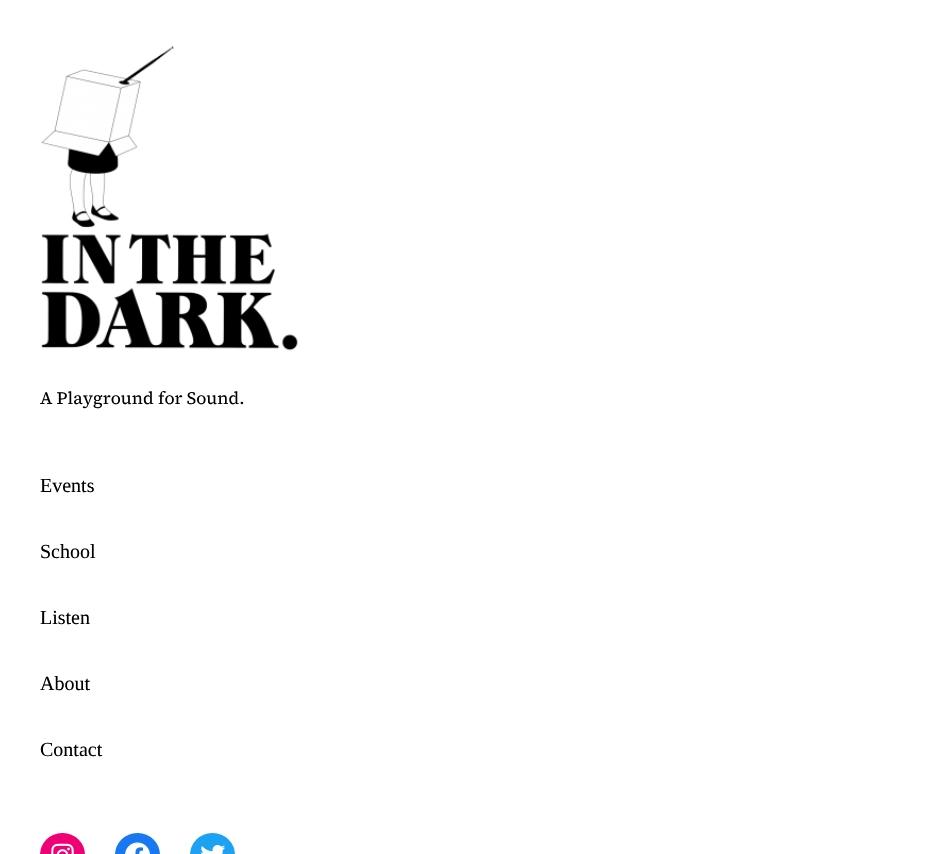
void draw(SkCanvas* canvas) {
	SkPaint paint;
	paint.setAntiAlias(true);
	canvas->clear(0xffffffff);
	canvas->drawImageRect(SkImages::DeferredFromEncodedData(SkData::MakeFromFileName("img1.png")), SkRect::MakeXYWH(41, 45, 257, 306), SkSamplingOptions());
	SkFont f1(fontMgr->matchFamilyStyle("Source Serif 4", SkFontStyle::Normal()), 17.5);
	f1.setSubpixel(true);
	paint.setColor(0xff000000);
	canvas->drawString("A Playground for Sound.", 40, 404, f1, paint);
	SkFont f2(fontMgr->matchFamilyStyle("Liberation Serif", SkFontStyle::Normal()), 20);
	f2.setSubpixel(true);
	canvas->drawString("Events", 40, 492, f2, paint);
	canvas->drawString("School", 40, 558, f2, paint);
	canvas->drawString("Listen", 40, 624, f2, paint);
	canvas->drawString("About", 40, 690, f2, paint);
	canvas->drawString("Contact", 40, 756, f2, paint);
	paint.setColor(0xfff00075);
	canvas->drawRoundRect(SkRect::MakeXYWH(40, 833, 45, 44), 22.5, 22.5, paint);
	canvas->drawImageRect(SkImages::DeferredFromEncodedData(SkData::MakeFromFileName("img2.png")), SkRect::MakeXYWH(51, 843, 23, 11), SkSamplingOptions());
	paint.setColor(0xff1778f2);
	canvas->drawRoundRect(SkRect::MakeXYWH(115, 833, 45, 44), 22.5, 22.5, paint);
	canvas->drawImageRect(SkImages::DeferredFromEncodedData(SkData::MakeFromFileName("img3.png")), SkRect::MakeXYWH(125, 842, 25, 12), SkSamplingOptions());
	paint.setColor(0xff1da1f2);
	canvas->drawRoundRect(SkRect::MakeXYWH(190, 833, 45, 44), 22.5, 22.5, paint);
	canvas->drawImageRect(SkImages::DeferredFromEncodedData(SkData::MakeFromFileName("img4.png")), SkRect::MakeXYWH(201, 845, 25, 9), SkSamplingOptions());
}
